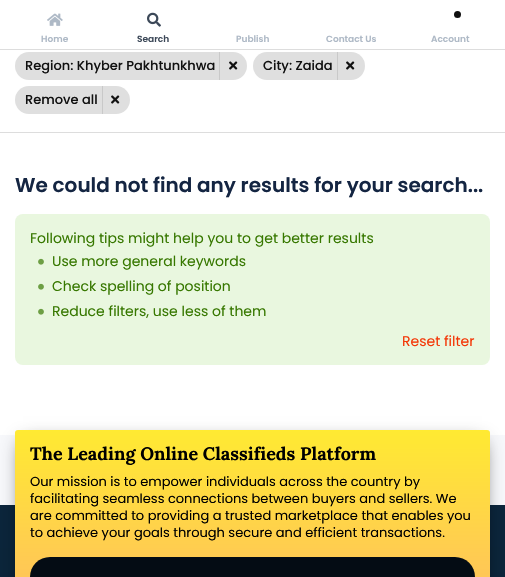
void draw(SkCanvas* canvas) {
	SkPaint paint;
	paint.setAntiAlias(true);
	canvas->clear(0xfff7f8fb);
	paint.setColor(0xffffffff);
	canvas->drawRect(SkRect::MakeXYWH(0, 0, 505, 49), paint);
	paint.setColor(0xffdddddd);
	canvas->drawRect(SkRect::MakeXYWH(0, 49, 505, 1), paint);
	canvas->drawImageRect(SkImages::DeferredFromEncodedData(SkData::MakeFromFileName("img1.png")), SkRect::MakeXYWH(47, 13, 16, 13), SkSamplingOptions());
	SkFont f1(fontMgr->matchFamilyStyle("Poppins", SkFontStyle(600, SkFontStyle::kNormal_Width, SkFontStyle::kUpright_Slant)), 9);
	f1.setSubpixel(true);
	paint.setColor(0xffaeb9c6);
	canvas->drawString("Home", 41, 42, f1, paint);
	canvas->drawImageRect(SkImages::DeferredFromEncodedData(SkData::MakeFromFileName("img2.png")), SkRect::MakeXYWH(147, 12, 14, 15), SkSamplingOptions());
	paint.setColor(0xff3c4858);
	canvas->drawString("Search", 137, 42, f1, paint);
	paint.setColor(0xffaeb9c6);
	canvas->drawString("Publish", 236, 42, f1, paint);
	canvas->drawString("Contact Us", 326, 42, f1, paint);
	paint.setColor(0xff0f0f0f);
	canvas->drawCircle(457.5, 14.5, 3.5, paint);
	paint.setColor(0xffaeb9c6);
	canvas->drawString("Account", 431, 42, f1, paint);
	paint.setColor(0xffffffff);
	canvas->drawRect(SkRect::MakeXYWH(0, 50, 505, 385), paint);
	paint.setColor(0xffdfdfdf);
	canvas->drawRoundRect(SkRect::MakeXYWH(15, 52, 232, 28), 14, 14, paint);
	SkFont f2(fontMgr->matchFamilyStyle("Poppins", SkFontStyle(500, SkFontStyle::kNormal_Width, SkFontStyle::kUpright_Slant)), 13);
	f2.setSubpixel(true);
	paint.setColor(0xff111111);
	canvas->drawString("Region: Khyber Pakhtunkhwa", 25, 70, f2, paint);
	paint.setColor(0xffc9c9c9);
	canvas->drawRect(SkRect::MakeXYWH(219, 52, 1, 28), paint);
	canvas->drawImageRect(SkImages::DeferredFromEncodedData(SkData::MakeFromFileName("img3.png")), SkRect::MakeXYWH(229, 61, 9, 9), SkSamplingOptions());
	paint.setColor(0xffdfdfdf);
	canvas->drawRoundRect(SkRect::MakeXYWH(253, 52, 112, 28), 14, 14, paint);
	paint.setColor(0xff111111);
	canvas->drawString("City: Zaida", 263, 70, f2, paint);
	paint.setColor(0xffc9c9c9);
	canvas->drawRect(SkRect::MakeXYWH(337, 52, 1, 28), paint);
	canvas->drawImageRect(SkImages::DeferredFromEncodedData(SkData::MakeFromFileName("img3.png")), SkRect::MakeXYWH(346, 61, 9, 9), SkSamplingOptions());
	paint.setColor(0xffdfdfdf);
	canvas->drawRoundRect(SkRect::MakeXYWH(15, 86, 115, 28), 14, 14, paint);
	paint.setColor(0xff111111);
	canvas->drawString("Remove all", 25, 104, f2, paint);
	paint.setColor(0xffc9c9c9);
	canvas->drawRect(SkRect::MakeXYWH(102, 86, 1, 28), paint);
	canvas->drawImageRect(SkImages::DeferredFromEncodedData(SkData::MakeFromFileName("img3.png")), SkRect::MakeXYWH(111, 95, 9, 9), SkSamplingOptions());
	paint.setColor(0xffdddddd);
	canvas->drawRect(SkRect::MakeXYWH(0, 132, 505, 1), paint);
	SkFont f3(fontMgr->matchFamilyStyle("Poppins", SkFontStyle(600, SkFontStyle::kNormal_Width, SkFontStyle::kUpright_Slant)), 20);
	f3.setSubpixel(true);
	paint.setColor(0xff142542);
	canvas->drawString("We could not find any results for your search...", 15, 192, f3, paint);
	paint.setColor(0xffe9f7df);
	canvas->drawRoundRect(SkRect::MakeXYWH(15, 214, 475, 151), 8, 8, paint);
	SkFont f4(fontMgr->matchFamilyStyle("Poppins", SkFontStyle::Normal()), 14);
	f4.setSubpixel(true);
	paint.setColor(0xff377800);
	canvas->drawString("Following tips might help you to get better results", 30, 243, f4, paint);
	canvas->drawImageRect(SkImages::DeferredFromEncodedData(SkData::MakeFromFileName("img4.png")), SkRect::MakeXYWH(38, 258, 6, 7), SkSamplingOptions());
	canvas->drawString("Use more general keywords", 52, 266, f4, paint);
	canvas->drawImageRect(SkImages::DeferredFromEncodedData(SkData::MakeFromFileName("img4.png")), SkRect::MakeXYWH(38, 283, 6, 7), SkSamplingOptions());
	canvas->drawString("Check spelling of position", 52, 291, f4, paint);
	canvas->drawImageRect(SkImages::DeferredFromEncodedData(SkData::MakeFromFileName("img4.png")), SkRect::MakeXYWH(38, 308, 6, 7), SkSamplingOptions());
	canvas->drawString("Reduce filters, use less of them", 52, 316, f4, paint);
	paint.setColor(0xfff43606);
	canvas->drawString("Reset filter", 402, 346, f4, paint);
	{
		const SkColor colors[] = {0xff0b253b, 0xff081928};
		const float stops[] = {0, 0.72};
		const SkPoint ends[] = {{252, 505}, {253, 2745}};
		paint.setShader(SkGradientShader::MakeLinear(ends, colors, stops, 2, SkTileMode::kClamp));
		paint.setAlpha(255);
	}
	canvas->drawRect(SkRect::MakeXYWH(0, 505, 505, 72), paint);
	paint.setShader(nullptr);
	paint.setColor(0xcc000000);
	paint.setMaskFilter(SkMaskFilter::MakeBlur(kNormal_SkBlurStyle, 9));
	canvas->drawRect(SkRect::MakeXYWH(23, 443, 459, 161), paint);
	paint.setMaskFilter(nullptr);
	{
		const SkColor colors[] = {0xffffea32, 0xffffbe5f};
		const float stops[] = {0, 1};
		const SkPoint ends[] = {{253, 430}, {253, 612}};
		paint.setShader(SkGradientShader::MakeLinear(ends, colors, stops, 2, SkTileMode::kClamp));
		paint.setAlpha(255);
	}
	canvas->drawRoundRect(SkRect::MakeXYWH(15, 430, 475, 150), 3, 3, paint);
	SkFont f5(fontMgr->matchFamilyStyle("Lora", SkFontStyle::Bold()), 18);
	f5.setSubpixel(true);
	paint.setShader(nullptr);
	paint.setColor(0xff000000);
	canvas->drawString("The Leading Online Classifieds Platform", 30, 460, f5, paint);
	SkFont f6(fontMgr->matchFamilyStyle("Poppins", SkFontStyle::Normal()), 13);
	f6.setSubpixel(true);
	canvas->drawString("Our mission is to empower individuals across the country by", 30, 486, f6, paint);
	canvas->drawString("facilitating seamless connections between buyers and sellers. We", 30, 503, f6, paint);
	canvas->drawString("are committed to providing a trusted marketplace that enables you", 30, 520, f6, paint);
	canvas->drawString("to achieve your goals through secure and efficient transactions.", 30, 537, f6, paint);
	paint.setColor(0xff040c14);
	canvas->drawRoundRect(SkRect::MakeXYWH(30, 557, 445, 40), 20, 20, paint);
}
